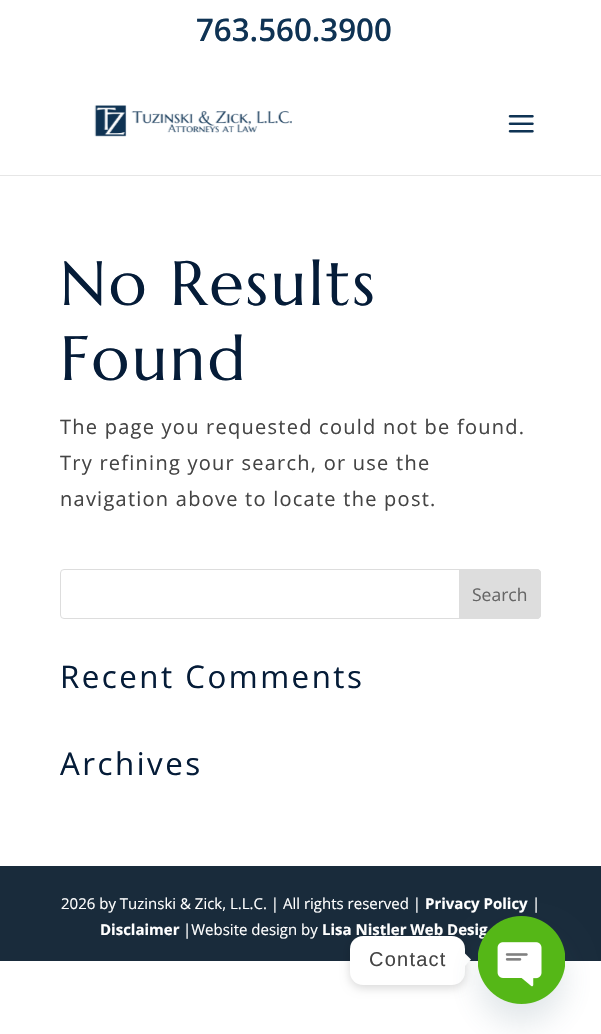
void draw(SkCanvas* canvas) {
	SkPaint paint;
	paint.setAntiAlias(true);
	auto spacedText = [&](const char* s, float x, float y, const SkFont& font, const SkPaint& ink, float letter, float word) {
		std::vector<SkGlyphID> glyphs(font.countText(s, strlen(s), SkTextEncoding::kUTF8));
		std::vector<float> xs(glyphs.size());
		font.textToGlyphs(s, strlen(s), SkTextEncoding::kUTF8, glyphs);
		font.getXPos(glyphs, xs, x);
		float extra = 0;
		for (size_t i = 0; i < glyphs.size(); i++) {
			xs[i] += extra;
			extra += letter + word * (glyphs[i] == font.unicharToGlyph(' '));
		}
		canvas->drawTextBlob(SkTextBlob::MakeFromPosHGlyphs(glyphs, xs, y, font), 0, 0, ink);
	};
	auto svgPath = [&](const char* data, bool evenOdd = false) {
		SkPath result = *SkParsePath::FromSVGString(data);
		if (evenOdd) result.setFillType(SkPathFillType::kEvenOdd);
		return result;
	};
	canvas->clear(0xffffffff);
	SkFont f1(fontMgr->matchFamilyStyle("Open Sans", SkFontStyle(600, SkFontStyle::kNormal_Width, SkFontStyle::kUpright_Slant)), 31.25);
	f1.setSubpixel(true);
	paint.setColor(0xff0f3354);
	canvas->drawString("763.560.3900", 196, 41, f1, paint);
	paint.setColor(0xffe6e6e6);
	canvas->drawRect(SkRect::MakeXYWH(0, 175, 601, 1), paint);
	canvas->drawImageRect(SkImages::DeferredFromEncodedData(SkData::MakeFromFileName("img1.png")), SkRect::MakeXYWH(94, 105, 198, 32), SkSamplingOptions());
	canvas->drawImageRect(SkImages::DeferredFromEncodedData(SkData::MakeFromFileName("img2.png")), SkRect::MakeXYWH(508, 115, 26, 18), SkSamplingOptions());
	SkFont f2(fontMgr->matchFamilyStyle("Marcellus", SkFontStyle::Normal()), 62.5);
	f2.setSubpixel(true);
	paint.setColor(0xff051c38);
	spacedText("No Results", 60, 305, f2, paint, 2.5, 0);
	spacedText("Found", 60, 380, f2, paint, 2.5, 0);
	SkFont f3(fontMgr->matchFamilyStyle("Open Sans", SkFontStyle::Normal()), 20);
	f3.setSubpixel(true);
	paint.setColor(0xff444444);
	spacedText("The page you requested could not be found.", 60, 434, f3, paint, 1.25, 0);
	spacedText("Try refining your search, or use the", 60, 470, f3, paint, 1.25, 0);
	spacedText("navigation above to locate the post.", 60, 506, f3, paint, 1.25, 0);
	paint.setStroke(true);
	paint.setStrokeWidth(1);
	paint.setColor(0xffdddddd);
	canvas->drawRoundRect(SkRect::MakeXYWH(60.5, 569.5, 480, 49), 3.5, 3.5, paint);
	paint.setStroke(false);
	canvas->drawPath(svgPath("M459.5 569.5H537C539 569.5 540.5 571 540.5 573V615C540.5 617 539 618.5 537 618.5H459.5Z"), paint);
	paint.setStroke(true);
	canvas->drawPath(svgPath("M459.5 569.5H537C539 569.5 540.5 571 540.5 573V615C540.5 617 539 618.5 537 618.5H459.5Z"), paint);
	SkFont f4(fontMgr->matchFamilyStyle("Open Sans", SkFontStyle::Normal()), 17.5);
	f4.setSubpixel(true);
	paint.setStroke(false);
	paint.setColor(0xff666666);
	canvas->drawString("Search", 472, 601, f4, paint);
	SkFont f5(fontMgr->matchFamilyStyle("Open Sans", SkFontStyle::Normal()), 31.25);
	f5.setSubpixel(true);
	paint.setColor(0xff051c38);
	spacedText("Recent Comments", 60, 688, f5, paint, 2.5, 0);
	spacedText("Archives", 60, 775, f5, paint, 2.5, 0);
	paint.setColor(0xff192b3b);
	canvas->drawRect(SkRect::MakeXYWH(0, 866, 601, 95), paint);
	SkFont f6(fontMgr->matchFamilyStyle("Open Sans", SkFontStyle::Normal()), 15);
	f6.setSubpixel(true);
	paint.setColor(0xffffffff);
	canvas->drawString("2026 by Tuzinski & Zick, L.L.C. | All rights reserved |", 61, 909, f6, paint);
	SkFont f7(fontMgr->matchFamilyStyle("Open Sans", SkFontStyle::Bold()), 15);
	f7.setSubpixel(true);
	canvas->drawString("Privacy Policy", 425, 909, f7, paint);
	canvas->drawString("|", 532, 909, f6, paint);
	canvas->drawString("Disclaimer", 100, 935, f7, paint);
	canvas->drawString("|Website design by", 183, 935, f6, paint);
	canvas->drawString("Lisa Nistler Web Desig", 322, 935, f7, paint);
	paint.setColor(0x26000000);
	paint.setMaskFilter(SkMaskFilter::MakeBlur(kNormal_SkBlurStyle, 5));
	canvas->drawRoundRect(SkRect::MakeXYWH(350, 939, 115, 49), 13, 13, paint);
	paint.setMaskFilter(nullptr);
	paint.setColor(0xffffffff);
	canvas->drawRoundRect(SkRect::MakeXYWH(350, 936, 115, 49), 13, 13, paint);
	SkFont f8(fontMgr->matchFamilyStyle("Liberation Sans", SkFontStyle::Normal()), 20);
	f8.setSubpixel(true);
	paint.setColor(0xff444444);
	spacedText("Contact", 369, 966, f8, paint, 1.25, 0);
	paint.setColor(0xffffffff);
	canvas->drawPath(svgPath("M465 966V953.5L471 959.5Z"), paint);
	paint.setColor(0x2949687e);
	paint.setMaskFilter(SkMaskFilter::MakeBlur(kNormal_SkBlurStyle, 15));
	canvas->drawRoundRect(SkRect::MakeXYWH(478, 936, 87, 88), 43.5, 43.5, paint);
	paint.setMaskFilter(nullptr);
	canvas->drawImageRect(SkImages::DeferredFromEncodedData(SkData::MakeFromFileName("img3.png")), SkRect::MakeXYWH(478, 916, 87, 88), SkSamplingOptions());
}
